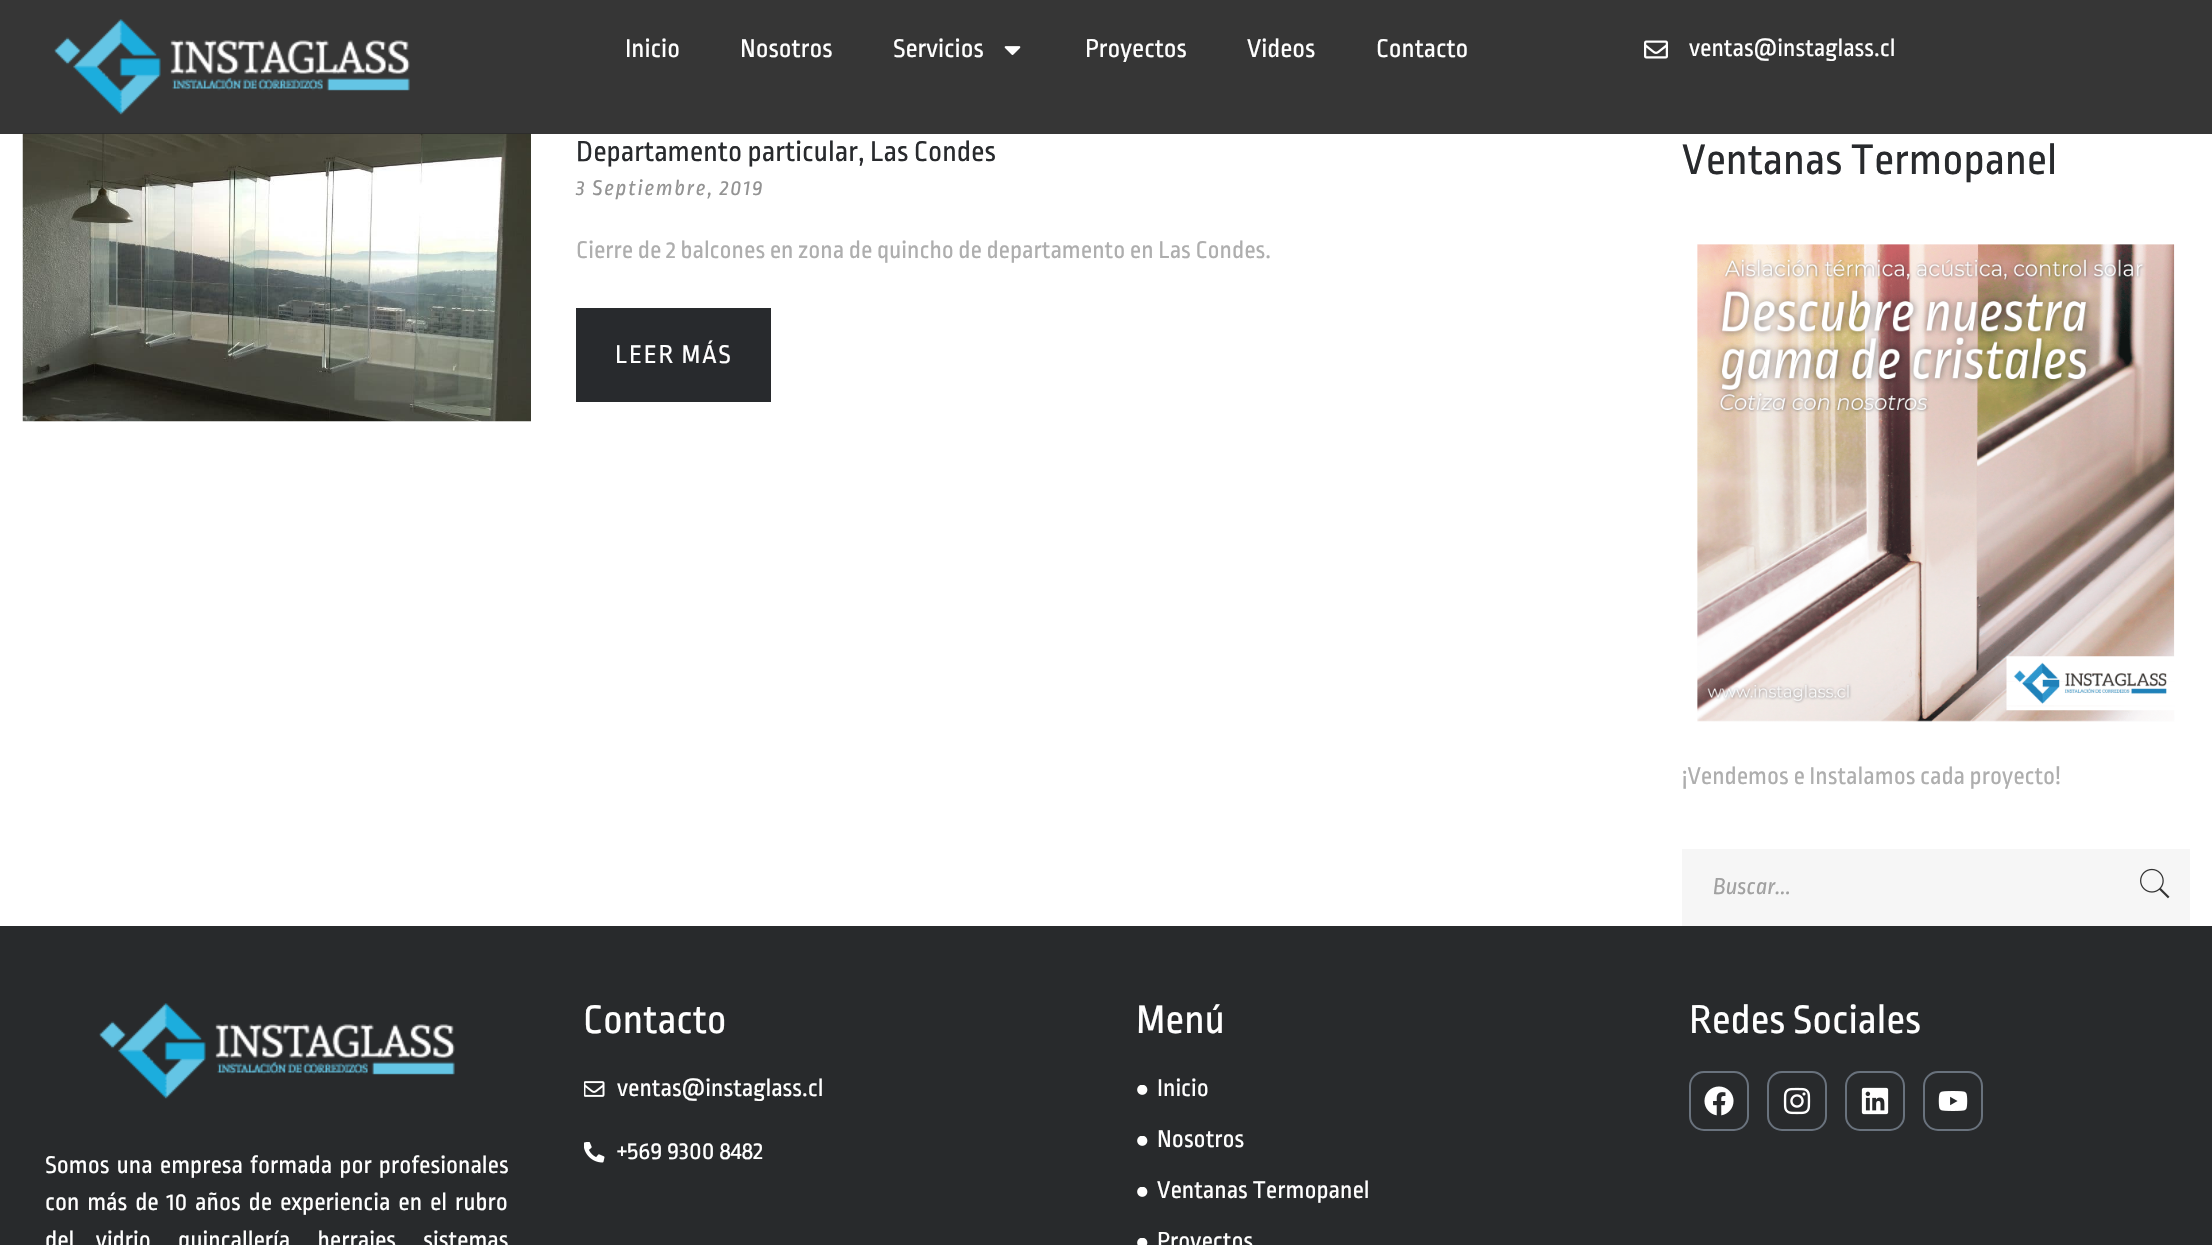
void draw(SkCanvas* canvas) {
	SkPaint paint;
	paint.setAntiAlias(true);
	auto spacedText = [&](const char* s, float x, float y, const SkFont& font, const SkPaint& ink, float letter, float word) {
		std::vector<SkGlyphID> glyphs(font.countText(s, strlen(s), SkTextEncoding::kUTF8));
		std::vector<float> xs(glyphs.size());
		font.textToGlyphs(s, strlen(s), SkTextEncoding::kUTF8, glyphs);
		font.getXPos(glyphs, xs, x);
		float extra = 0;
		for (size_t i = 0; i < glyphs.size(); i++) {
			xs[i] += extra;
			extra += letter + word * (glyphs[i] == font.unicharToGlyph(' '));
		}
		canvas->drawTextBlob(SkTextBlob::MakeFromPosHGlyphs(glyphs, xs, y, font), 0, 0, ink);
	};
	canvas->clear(0xffffffff);
	canvas->drawImageRect(SkImages::DeferredFromEncodedData(SkData::MakeFromFileName("img4.png")), SkRect::MakeXYWH(22, 133, 509, 289), SkSamplingOptions());
	paint.setColor(0xc9000000);
	canvas->drawRect(SkRect::MakeXYWH(0, 0, 2212, 134), paint);
	canvas->drawImageRect(SkImages::DeferredFromEncodedData(SkData::MakeFromFileName("img1.png")), SkRect::MakeXYWH(54, 19, 356, 96), SkSamplingOptions());
	SkFont f1(fontMgr->matchFamilyStyle("Ropa Sans", SkFontStyle::Normal()), 27);
	f1.setSubpixel(true);
	paint.setColor(0xffffffff);
	canvas->drawString("Inicio", 625, 57, f1, paint);
	canvas->drawString("Nosotros", 740, 57, f1, paint);
	canvas->drawString("Servicios", 893, 57, f1, paint);
	canvas->drawImageRect(SkImages::DeferredFromEncodedData(SkData::MakeFromFileName("img2.png")), SkRect::MakeXYWH(1004, 46, 17, 9), SkSamplingOptions());
	canvas->drawString("Proyectos", 1085, 57, f1, paint);
	canvas->drawString("Videos", 1247, 57, f1, paint);
	canvas->drawString("Contacto", 1376, 57, f1, paint);
	canvas->drawImageRect(SkImages::DeferredFromEncodedData(SkData::MakeFromFileName("img3.png")), SkRect::MakeXYWH(1644, 40, 24, 19), SkSamplingOptions());
	SkFont f2(fontMgr->matchFamilyStyle("Ropa Sans", SkFontStyle::Normal()), 25.5);
	f2.setSubpixel(true);
	canvas->drawString("ventas@instaglass.cl", 1689, 56, f2, paint);
	SkFont f3(fontMgr->matchFamilyStyle("Ropa Sans", SkFontStyle::Normal()), 30);
	f3.setSubpixel(true);
	paint.setColor(0xff282a2d);
	canvas->drawString("Departamento particular, Las Condes", 576, 161, f3, paint);
	SkFont f4(fontMgr->matchFamilyStyle("Ropa Sans", SkFontStyle::Italic()), 22.5);
	f4.setSubpixel(true);
	paint.setColor(0xff939393);
	spacedText("3 Septiembre, 2019", 576, 195, f4, paint, 1.75, 0);
	paint.setColor(0xffaeaeae);
	canvas->drawString("Cierre de 2 balcones en zona de quincho de departamento en Las Condes.", 576, 258, f2, paint);
	paint.setColor(0xff282a2d);
	canvas->drawRect(SkRect::MakeXYWH(576, 308, 195, 94), paint);
	paint.setColor(0xffffffff);
	spacedText("LEER MÁS", 615, 363, f1, paint, 1.75, 0);
	SkFont f5(fontMgr->matchFamilyStyle("Ropa Sans", SkFontStyle::Normal()), 45);
	f5.setSubpixel(true);
	paint.setColor(0xff282a2d);
	canvas->drawString("Ventanas Termopanel", 1682, 174, f5, paint);
	canvas->drawImageRect(SkImages::DeferredFromEncodedData(SkData::MakeFromFileName("img5.png")), SkRect::MakeXYWH(1697, 244, 478, 478), SkSamplingOptions());
	paint.setColor(0xffaeaeae);
	canvas->drawString("¡Vendemos e Instalamos cada proyecto!", 1682, 784, f2, paint);
	paint.setColor(0xfff6f6f6);
	canvas->drawRect(SkRect::MakeXYWH(1682, 849, 508, 77), paint);
	SkFont f6(fontMgr->matchFamilyStyle("Ropa Sans", SkFontStyle::Italic()), 24);
	f6.setSubpixel(true);
	paint.setColor(0xffa1a1a1);
	canvas->drawString("Buscar...", 1713, 894, f6, paint);
	canvas->drawImageRect(SkImages::DeferredFromEncodedData(SkData::MakeFromFileName("img6.png")), SkRect::MakeXYWH(2140, 868, 30, 31), SkSamplingOptions());
	paint.setColor(0xff282a2c);
	canvas->drawRect(SkRect::MakeXYWH(0, 926, 2212, 319), paint);
	SkFont f7(fontMgr->matchFamilyStyle("Ropa Sans", SkFontStyle::Normal()), 42);
	f7.setSubpixel(true);
	paint.setColor(0xffffffff);
	canvas->drawString("Contacto", 583, 1033, f7, paint);
	canvas->drawImageRect(SkImages::DeferredFromEncodedData(SkData::MakeFromFileName("img7.png")), SkRect::MakeXYWH(584, 1081, 21, 16), SkSamplingOptions());
	canvas->drawString("ventas@instaglass.cl", 617, 1096, f2, paint);
	canvas->drawImageRect(SkImages::DeferredFromEncodedData(SkData::MakeFromFileName("img8.png")), SkRect::MakeXYWH(584, 1142, 21, 21), SkSamplingOptions());
	canvas->drawString("+569 9300 8482", 617, 1159, f2, paint);
	canvas->drawString("Menú", 1136, 1033, f7, paint);
	canvas->drawImageRect(SkImages::DeferredFromEncodedData(SkData::MakeFromFileName("img9.png")), SkRect::MakeXYWH(1137, 1085, 11, 10), SkSamplingOptions());
	canvas->drawString("Inicio", 1157, 1096, f2, paint);
	canvas->drawImageRect(SkImages::DeferredFromEncodedData(SkData::MakeFromFileName("img9.png")), SkRect::MakeXYWH(1137, 1136, 11, 10), SkSamplingOptions());
	canvas->drawString("Nosotros", 1157, 1147, f2, paint);
	canvas->drawImageRect(SkImages::DeferredFromEncodedData(SkData::MakeFromFileName("img9.png")), SkRect::MakeXYWH(1137, 1187, 11, 10), SkSamplingOptions());
	canvas->drawString("Ventanas Termopanel", 1157, 1198, f2, paint);
	canvas->drawImageRect(SkImages::DeferredFromEncodedData(SkData::MakeFromFileName("img10.png")), SkRect::MakeXYWH(1137, 1238, 11, 7), SkSamplingOptions());
	canvas->drawString("Proyectos", 1157, 1249, f2, paint);
	canvas->drawString("Redes Sociales", 1689, 1033, f7, paint);
	paint.setStroke(true);
	paint.setStrokeWidth(2);
	paint.setColor(0xff69727d);
	canvas->drawRoundRect(SkRect::MakeXYWH(1690, 1072, 58, 58), 14, 14, paint);
	canvas->drawImageRect(SkImages::DeferredFromEncodedData(SkData::MakeFromFileName("img11.png")), SkRect::MakeXYWH(1704, 1086, 30, 30), SkSamplingOptions());
	canvas->drawRoundRect(SkRect::MakeXYWH(1768, 1072, 58, 58), 14, 14, paint);
	canvas->drawImageRect(SkImages::DeferredFromEncodedData(SkData::MakeFromFileName("img12.png")), SkRect::MakeXYWH(1783, 1087, 28, 28), SkSamplingOptions());
	canvas->drawRoundRect(SkRect::MakeXYWH(1846, 1072, 58, 58), 14, 14, paint);
	canvas->drawImageRect(SkImages::DeferredFromEncodedData(SkData::MakeFromFileName("img13.png")), SkRect::MakeXYWH(1861, 1087, 28, 28), SkSamplingOptions());
	canvas->drawRoundRect(SkRect::MakeXYWH(1924, 1072, 58, 58), 14, 14, paint);
	canvas->drawImageRect(SkImages::DeferredFromEncodedData(SkData::MakeFromFileName("img14.png")), SkRect::MakeXYWH(1938, 1091, 30, 20), SkSamplingOptions());
	canvas->drawImageRect(SkImages::DeferredFromEncodedData(SkData::MakeFromFileName("img15.png")), SkRect::MakeXYWH(99, 1003, 356, 96), SkSamplingOptions());
	paint.setStroke(false);
	paint.setColor(0xffffffff);
	spacedText("Somos una empresa formada por profesionales", 45, 1173, f2, paint, 0, 2.5);
	spacedText("con más de 10 años de experiencia en el rubro", 45, 1210, f2, paint, 0, 3.25);
	spacedText("del vidrio, quincallería, herrajes, sistemas", 45, 1248, f2, paint, 0, 17);
}
